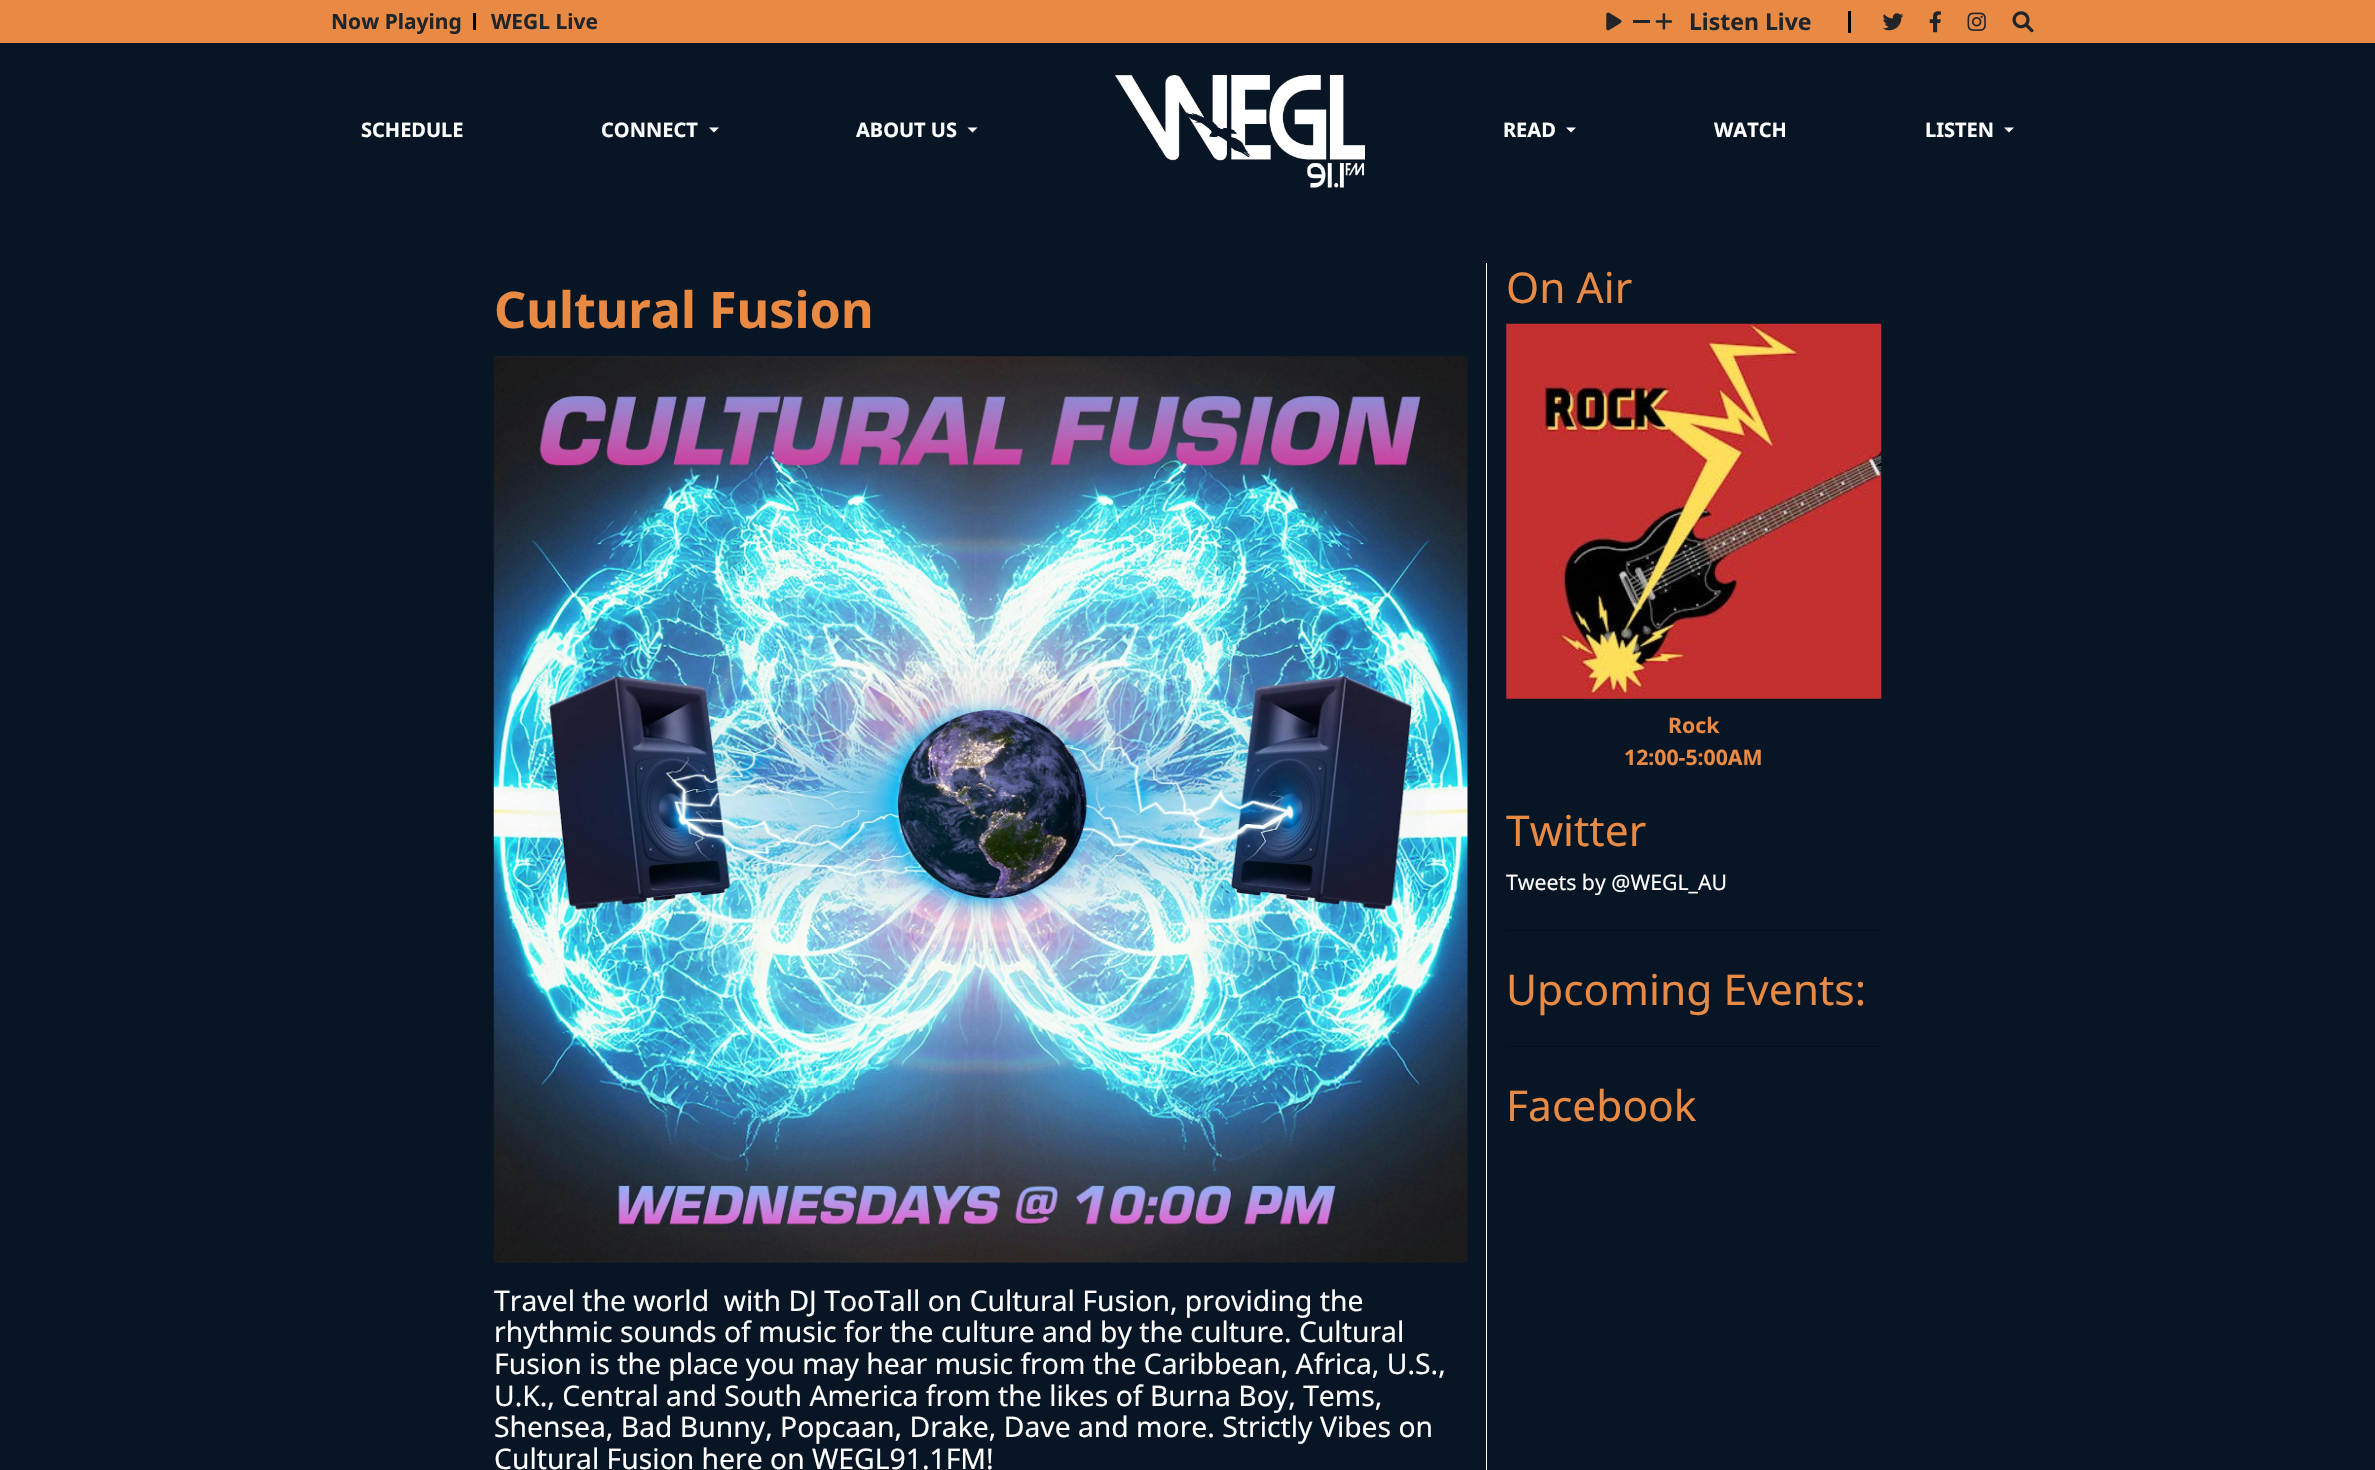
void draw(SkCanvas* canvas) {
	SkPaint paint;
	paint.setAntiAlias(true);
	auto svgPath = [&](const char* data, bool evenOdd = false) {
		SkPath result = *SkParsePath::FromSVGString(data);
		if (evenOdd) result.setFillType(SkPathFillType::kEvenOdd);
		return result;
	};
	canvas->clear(0xff071524);
	paint.setColor(0xffe88a43);
	canvas->drawRect(SkRect::MakeXYWH(0, 0, 2375, 43), paint);
	paint.setColor(0xff020100);
	canvas->drawRect(SkRect::MakeXYWH(473, 13, 3, 17), paint);
	SkFont f1(fontMgr->matchFamilyStyle("Noto Sans", SkFontStyle::Bold()), 21);
	f1.setSubpixel(true);
	paint.setColor(0xff212529);
	canvas->drawString("Now Playing", 331, 29, f1, paint);
	canvas->drawString("WEGL Live", 491, 29, f1, paint);
	canvas->drawImageRect(SkImages::DeferredFromEncodedData(SkData::MakeFromFileName("img1.png")), SkRect::MakeXYWH(1606, 12, 16, 19), SkSamplingOptions());
	canvas->drawRect(SkRect::MakeXYWH(1633, 20, 17, 3), paint);
	canvas->drawImageRect(SkImages::DeferredFromEncodedData(SkData::MakeFromFileName("img2.png")), SkRect::MakeXYWH(1655, 13, 18, 17), SkSamplingOptions());
	SkFont f2(fontMgr->matchFamilyStyle("Noto Sans", SkFontStyle::Bold()), 23);
	f2.setSubpixel(true);
	canvas->drawString("Listen Live", 1689, 30, f2, paint);
	paint.setColor(0xff020100);
	canvas->drawRect(SkRect::MakeXYWH(1848, 11, 3, 22), paint);
	canvas->drawImageRect(SkImages::DeferredFromEncodedData(SkData::MakeFromFileName("img3.png")), SkRect::MakeXYWH(1882, 13, 22, 18), SkSamplingOptions());
	canvas->drawImageRect(SkImages::DeferredFromEncodedData(SkData::MakeFromFileName("img4.png")), SkRect::MakeXYWH(1929, 11, 12, 22), SkSamplingOptions());
	canvas->drawImageRect(SkImages::DeferredFromEncodedData(SkData::MakeFromFileName("img5.png")), SkRect::MakeXYWH(1967, 12, 19, 19), SkSamplingOptions());
	canvas->drawImageRect(SkImages::DeferredFromEncodedData(SkData::MakeFromFileName("img6.png")), SkRect::MakeXYWH(2012, 11, 22, 22), SkSamplingOptions());
	SkFont f3(fontMgr->matchFamilyStyle("Noto Sans", SkFontStyle::Bold()), 20);
	f3.setSubpixel(true);
	paint.setColor(0xffffffff);
	canvas->drawString("SCHEDULE", 361, 137, f3, paint);
	canvas->drawString("CONNECT", 601, 137, f3, paint);
	canvas->drawPath(svgPath("M709 127.5H719L714 132.5Z"), paint);
	canvas->drawString("ABOUT US", 856, 137, f3, paint);
	canvas->drawPath(svgPath("M967.5 127.5H977.5L972.5 132.5Z"), paint);
	canvas->drawImageRect(SkImages::DeferredFromEncodedData(SkData::MakeFromFileName("img7.png")), SkRect::MakeXYWH(1115, 75, 250, 113), SkSamplingOptions());
	canvas->drawString("READ", 1503, 137, f3, paint);
	canvas->drawPath(svgPath("M1566 127.5H1576L1571 132.5Z"), paint);
	canvas->drawString("WATCH", 1714, 137, f3, paint);
	canvas->drawString("LISTEN", 1925, 137, f3, paint);
	canvas->drawPath(svgPath("M2004 127.5H2014L2009 132.5Z"), paint);
	canvas->drawRect(SkRect::MakeXYWH(1486, 263, 1, 1207), paint);
	SkFont f4(fontMgr->matchFamilyStyle("Noto Sans", SkFontStyle::Bold()), 50.25);
	f4.setSubpixel(true);
	paint.setColor(0xffe88a43);
	canvas->drawString("Cultural Fusion", 494, 328, f4, paint);
	canvas->drawImageRect(SkImages::DeferredFromEncodedData(SkData::MakeFromFileName("img8.png")), SkRect::MakeXYWH(493, 356, 975, 907), SkSamplingOptions());
	SkFont f5(fontMgr->matchFamilyStyle("Noto Sans", SkFontStyle::Normal()), 28.3);
	f5.setSubpixel(true);
	paint.setColor(0xffffffff);
	canvas->drawString("Travel the world  with DJ TooTall on Cultural Fusion, providing the", 494, 1311, f5, paint);
	canvas->drawString("rhythmic sounds of music for the culture and by the culture. Cultural", 494, 1342, f5, paint);
	canvas->drawString("Fusion is the place you may hear music from the Caribbean, Africa, U.S.,", 494, 1374, f5, paint);
	canvas->drawString("U.K., Central and South America from the likes of Burna Boy, Tems,", 494, 1406, f5, paint);
	canvas->drawString("Shensea, Bad Bunny, Popcaan, Drake, Dave and more. Strictly Vibes on", 494, 1437, f5, paint);
	canvas->drawString("Cultural Fusion here on WEGL91.1FM!", 494, 1469, f5, paint);
	SkFont f6(fontMgr->matchFamilyStyle("Noto Sans", SkFontStyle::Normal()), 42.5);
	f6.setSubpixel(true);
	paint.setColor(0xffe88a43);
	canvas->drawString("On Air", 1506, 303, f6, paint);
	canvas->drawImageRect(SkImages::DeferredFromEncodedData(SkData::MakeFromFileName("img9.png")), SkRect::MakeXYWH(1506, 323, 376, 376), SkSamplingOptions());
	SkFont f7(fontMgr->matchFamilyStyle("Noto Sans", SkFontStyle::Bold()), 21.25);
	f7.setSubpixel(true);
	canvas->drawString("Rock", 1668, 733, f7, paint);
	canvas->drawString("12:00-5:00AM", 1624, 765, f7, paint);
	canvas->drawString("Twitter", 1506, 846, f6, paint);
	SkFont f8(fontMgr->matchFamilyStyle("Noto Sans", SkFontStyle::Normal()), 21.25);
	f8.setSubpixel(true);
	paint.setColor(0xffffffff);
	canvas->drawString("Tweets by @WEGL_AU", 1506, 890, f8, paint);
	paint.setColor(0xff050e18);
	canvas->drawRect(SkRect::MakeXYWH(1506, 930, 375, 1), paint);
	paint.setColor(0xffe88a43);
	canvas->drawString("Upcoming Events:", 1506, 1005, f6, paint);
	paint.setColor(0xff050e18);
	canvas->drawRect(SkRect::MakeXYWH(1506, 1046, 375, 1), paint);
	paint.setColor(0xffe88a43);
	canvas->drawString("Facebook", 1506, 1121, f6, paint);
}
